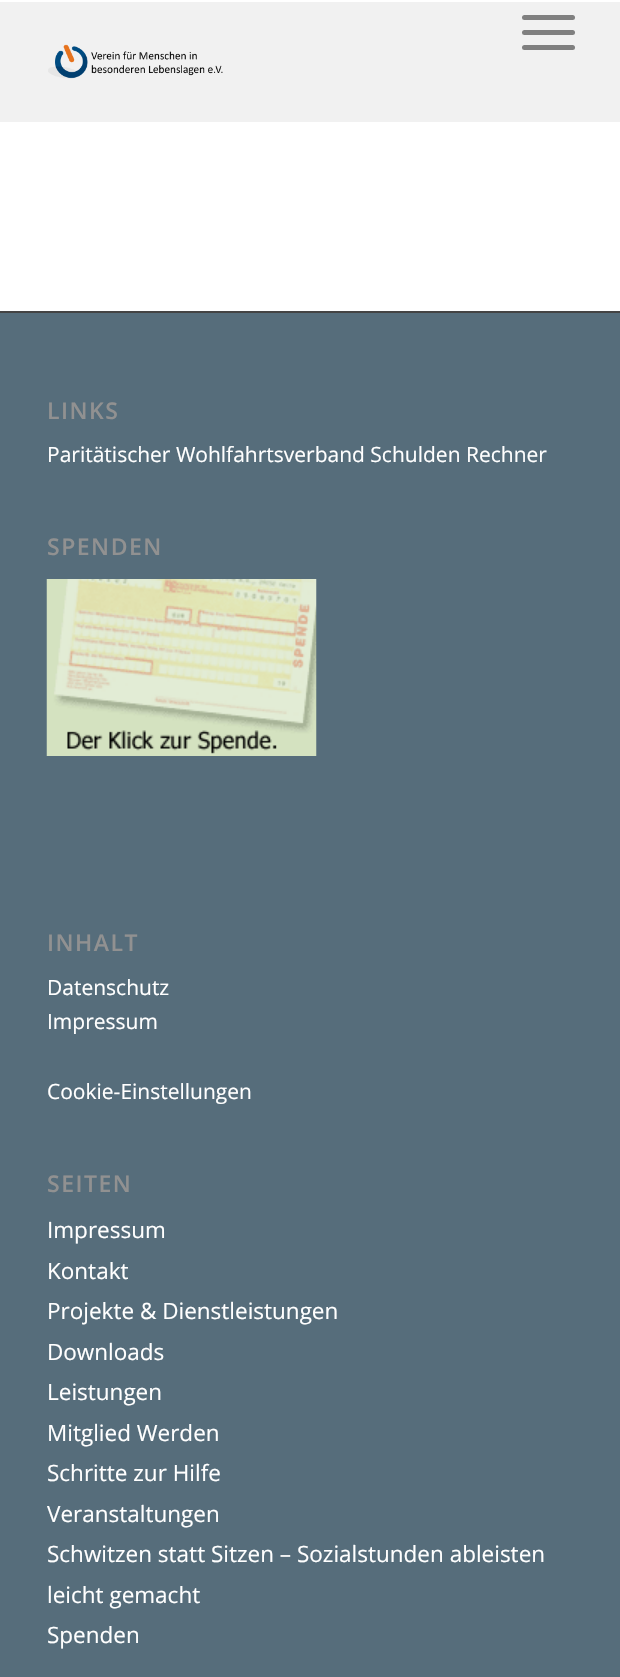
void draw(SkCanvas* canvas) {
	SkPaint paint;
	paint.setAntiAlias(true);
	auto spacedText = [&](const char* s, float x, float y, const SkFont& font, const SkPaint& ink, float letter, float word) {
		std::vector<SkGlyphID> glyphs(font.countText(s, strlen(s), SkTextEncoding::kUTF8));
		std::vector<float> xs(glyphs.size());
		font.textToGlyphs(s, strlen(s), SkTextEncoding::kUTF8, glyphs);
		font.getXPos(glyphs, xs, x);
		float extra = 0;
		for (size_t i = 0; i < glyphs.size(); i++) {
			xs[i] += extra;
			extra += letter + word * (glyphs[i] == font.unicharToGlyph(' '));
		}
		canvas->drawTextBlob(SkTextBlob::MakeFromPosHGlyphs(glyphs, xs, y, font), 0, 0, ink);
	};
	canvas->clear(0xffffffff);
	paint.setColor(0xfff1f1f1);
	canvas->drawRect(SkRect::MakeXYWH(0, 2, 620, 120), paint);
	paint.setColor(0xff808080);
	canvas->drawRoundRect(SkRect::MakeXYWH(522, 30, 53, 5), 2.5, 2.5, paint);
	canvas->drawRoundRect(SkRect::MakeXYWH(522, 15, 53, 5), 2.5, 2.5, paint);
	canvas->drawRoundRect(SkRect::MakeXYWH(522, 45, 53, 5), 2.5, 2.5, paint);
	canvas->drawImageRect(SkImages::DeferredFromEncodedData(SkData::MakeFromFileName("img1.png")), SkRect::MakeXYWH(48, 44, 175, 35), SkSamplingOptions());
	paint.setColor(0xff566d7b);
	canvas->drawRect(SkRect::MakeXYWH(0, 313, 620, 1364), paint);
	paint.setColor(0xff444444);
	canvas->drawRect(SkRect::MakeXYWH(0, 311, 620, 2), paint);
	SkFont f1(fontMgr->matchFamilyStyle("Open Sans", SkFontStyle(600, SkFontStyle::kNormal_Width, SkFontStyle::kUpright_Slant)), 23);
	f1.setSubpixel(true);
	paint.setColor(0xff919191);
	spacedText("LINKS", 47, 419, f1, paint, 1.5, 0);
	SkFont f2(fontMgr->matchFamilyStyle("Open Sans", SkFontStyle::Normal()), 21);
	f2.setSubpixel(true);
	paint.setColor(0xffffffff);
	canvas->drawString("Paritätischer Wohlfahrtsverband Schulden Rechner", 47, 462, f2, paint);
	paint.setColor(0xff919191);
	spacedText("SPENDEN", 47, 555, f1, paint, 1.5, 0);
	canvas->drawImageRect(SkImages::DeferredFromEncodedData(SkData::MakeFromFileName("img2.png")), SkRect::MakeXYWH(46, 579, 271, 177), SkSamplingOptions());
	spacedText("INHALT", 47, 951, f1, paint, 1.5, 0);
	paint.setColor(0xffffffff);
	canvas->drawString("Datenschutz", 47, 995, f2, paint);
	canvas->drawString("Impressum", 47, 1029, f2, paint);
	canvas->drawString("Cookie-Einstellungen", 47, 1099, f2, paint);
	paint.setColor(0xff919191);
	spacedText("SEITEN", 47, 1192, f1, paint, 1.5, 0);
	SkFont f3(fontMgr->matchFamilyStyle("Open Sans", SkFontStyle::Normal()), 22.5);
	f3.setSubpixel(true);
	paint.setColor(0xffffffff);
	canvas->drawString("Impressum", 47, 1238, f3, paint);
	canvas->drawString("Kontakt", 47, 1279, f3, paint);
	canvas->drawString("Projekte & Dienstleistungen", 47, 1319, f3, paint);
	canvas->drawString("Downloads", 47, 1360, f3, paint);
	canvas->drawString("Leistungen", 47, 1400, f3, paint);
	canvas->drawString("Mitglied Werden", 47, 1441, f3, paint);
	canvas->drawString("Schritte zur Hilfe", 47, 1481, f3, paint);
	canvas->drawString("Veranstaltungen", 47, 1522, f3, paint);
	canvas->drawString("Schwitzen statt Sitzen – Sozialstunden ableisten", 47, 1562, f3, paint);
	canvas->drawString("leicht gemacht", 47, 1603, f3, paint);
	canvas->drawString("Spenden", 47, 1643, f3, paint);
}
